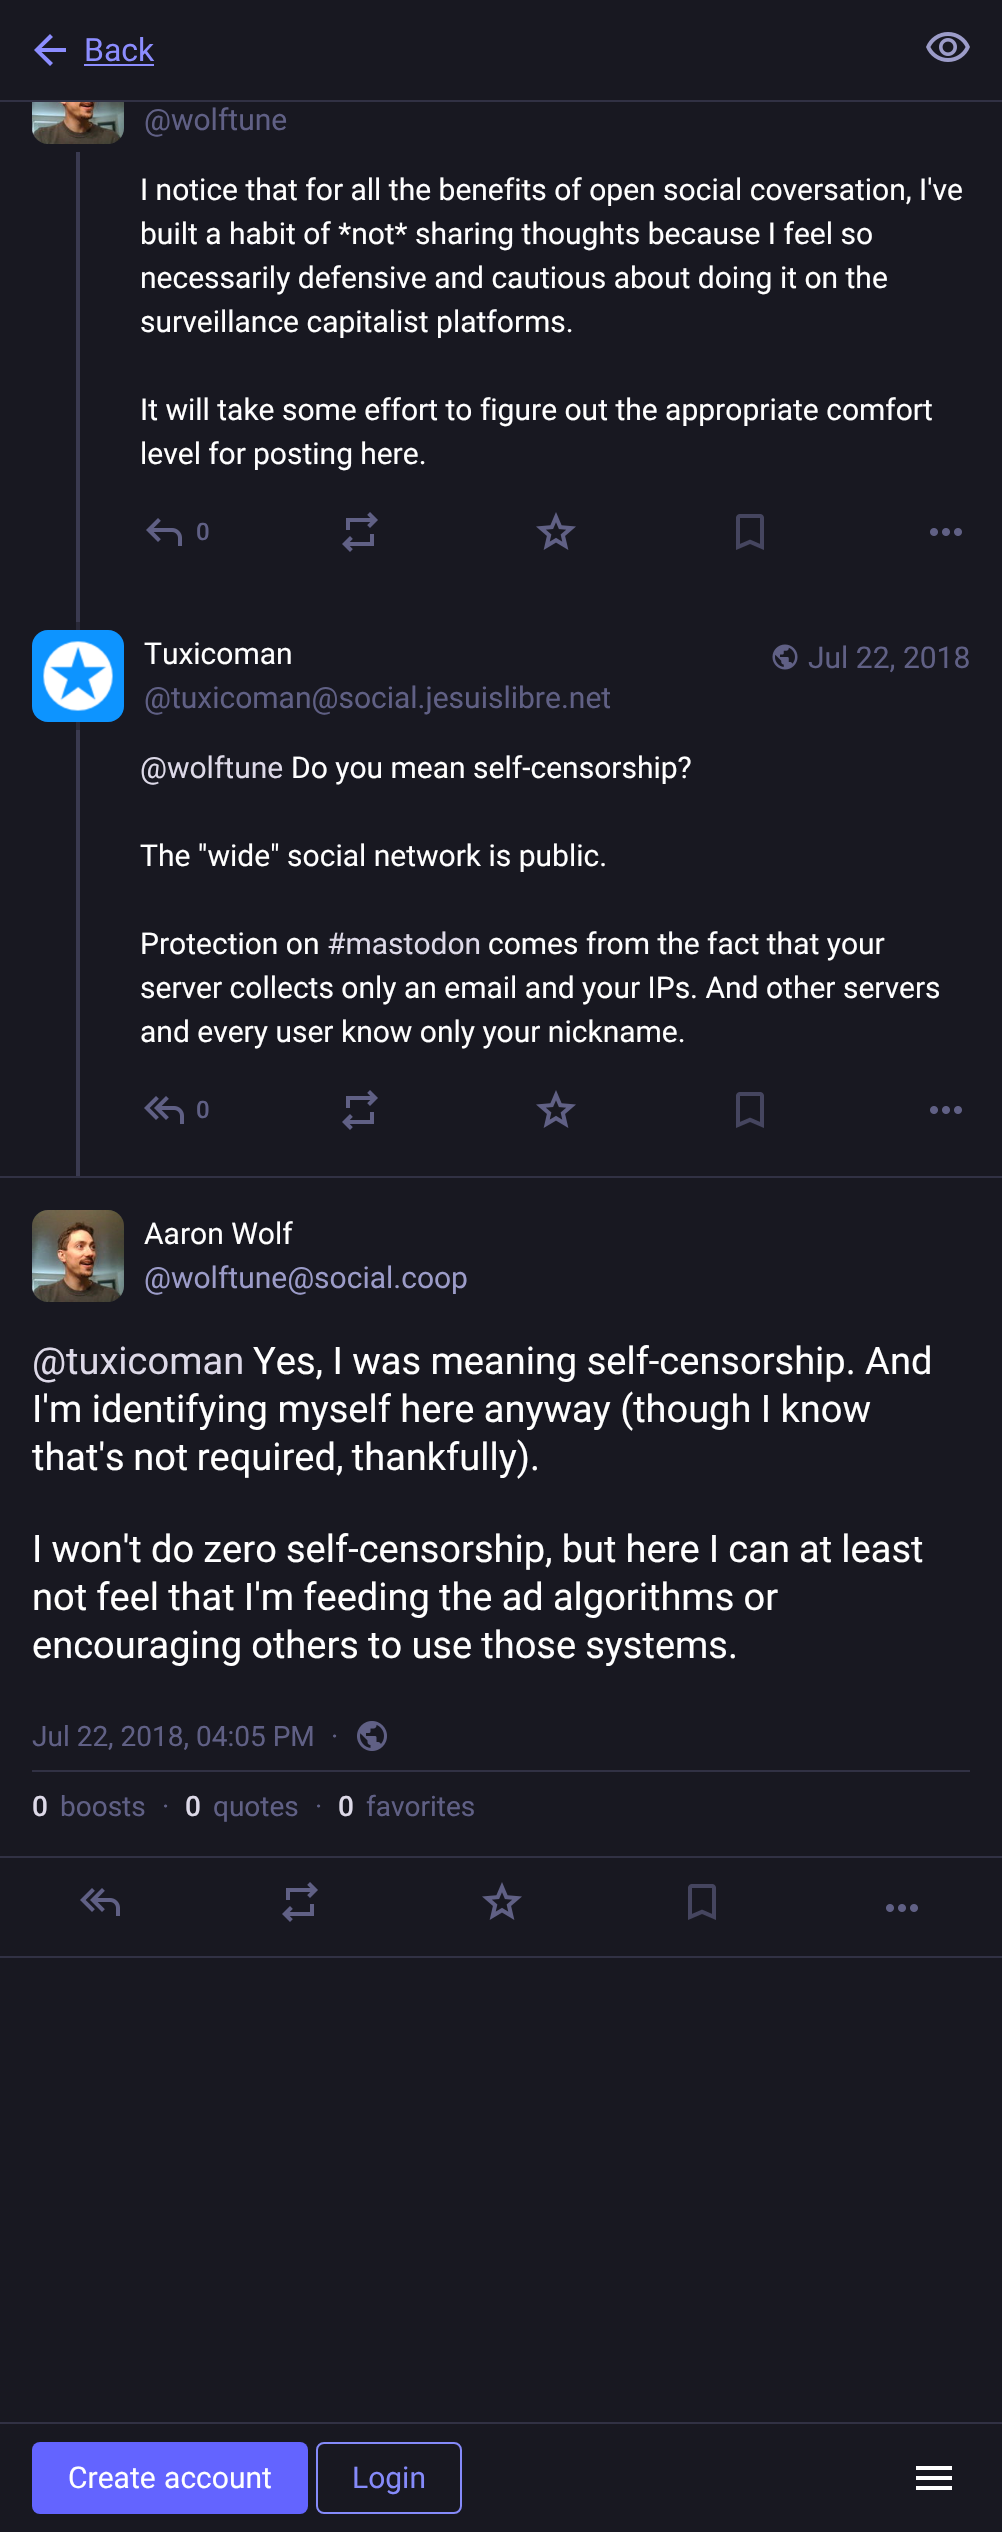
void draw(SkCanvas* canvas) {
	SkPaint paint;
	paint.setAntiAlias(true);
	auto spacedText = [&](const char* s, float x, float y, const SkFont& font, const SkPaint& ink, float letter, float word) {
		std::vector<SkGlyphID> glyphs(font.countText(s, strlen(s), SkTextEncoding::kUTF8));
		std::vector<float> xs(glyphs.size());
		font.textToGlyphs(s, strlen(s), SkTextEncoding::kUTF8, glyphs);
		font.getXPos(glyphs, xs, x);
		float extra = 0;
		for (size_t i = 0; i < glyphs.size(); i++) {
			xs[i] += extra;
			extra += letter + word * (glyphs[i] == font.unicharToGlyph(' '));
		}
		canvas->drawTextBlob(SkTextBlob::MakeFromPosHGlyphs(glyphs, xs, y, font), 0, 0, ink);
	};
	auto svgPath = [&](const char* data, bool evenOdd = false) {
		SkPath result = *SkParsePath::FromSVGString(data);
		if (evenOdd) result.setFillType(SkPathFillType::kEvenOdd);
		return result;
	};
	canvas->clear(0xff181821);
	paint.setColor(0xff20202c);
	canvas->drawRoundRect(SkRect::MakeXYWH(32, 52, 92, 92), 16, 16, paint);
	paint.setColor(0xff181821);
	canvas->drawRect(SkRect::MakeXYWH(32, 52, 92, 48), paint);
	paint.setColor(0xff313144);
	canvas->drawRect(SkRect::MakeXYWH(0, 100, 1002, 2), paint);
	paint.setColor(0xff8c8dff);
	canvas->drawPath(svgPath("M41.5 52L53 63L50 66L34 50L50 34L53 37L41.5 48H66V52Z"), paint);
	SkFont f1(fontMgr->matchFamilyStyle("Roboto", SkFontStyle::Normal()), 32);
	f1.setSubpixel(true);
	canvas->drawString("Back", 84, 61, f1, paint);
	canvas->drawRect(SkRect::MakeXYWH(84, 64, 70, 2), paint);
	canvas->drawImageRect(SkImages::DeferredFromEncodedData(SkData::MakeFromFileName("img1.png")), SkRect::MakeXYWH(926, 32, 44, 30), SkSamplingOptions());
	canvas->drawImageRect(SkImages::DeferredFromEncodedData(SkData::MakeFromFileName("img2.png")), SkRect::MakeXYWH(32, 102, 92, 42), SkSamplingOptions());
	SkFont f2(fontMgr->matchFamilyStyle("Roboto", SkFontStyle::Normal()), 30);
	f2.setSubpixel(true);
	paint.setColor(0xff606085);
	canvas->drawString("@wolftune", 144, 130, f2, paint);
	paint.setColor(0xff3a3a50);
	canvas->drawRect(SkRect::MakeXYWH(76, 152, 4, 1024), paint);
	paint.setColor(0xffffffff);
	canvas->drawString("I notice that for all the benefits of open social coversation, I've", 140, 200, f2, paint);
	canvas->drawString("built a habit of *not* sharing thoughts because I feel so", 140, 244, f2, paint);
	canvas->drawString("necessarily defensive and cautious about doing it on the", 140, 288, f2, paint);
	canvas->drawString("surveillance capitalist platforms.", 140, 332, f2, paint);
	canvas->drawString("It will take some effort to figure out the appropriate comfort", 140, 420, f2, paint);
	spacedText("level for posting here.", 140, 464, f2, paint, 0, -0.25);
	canvas->drawImageRect(SkImages::DeferredFromEncodedData(SkData::MakeFromFileName("img3.png")), SkRect::MakeXYWH(146, 518, 36, 28), SkSamplingOptions());
	SkFont f3(fontMgr->matchFamilyStyle("Roboto", SkFontStyle(500, SkFontStyle::kNormal_Width, SkFontStyle::kUpright_Slant)), 24);
	f3.setSubpixel(true);
	paint.setColor(0xff606085);
	canvas->drawString("0", 196, 540, f3, paint);
	canvas->drawImageRect(SkImages::DeferredFromEncodedData(SkData::MakeFromFileName("img4.png")), SkRect::MakeXYWH(342, 512, 36, 40), SkSamplingOptions());
	canvas->drawImageRect(SkImages::DeferredFromEncodedData(SkData::MakeFromFileName("img5.png")), SkRect::MakeXYWH(536, 512, 40, 38), SkSamplingOptions());
	canvas->drawImageRect(SkImages::DeferredFromEncodedData(SkData::MakeFromFileName("img6.png")), SkRect::MakeXYWH(736, 514, 28, 36), SkSamplingOptions());
	canvas->drawImageRect(SkImages::DeferredFromEncodedData(SkData::MakeFromFileName("img7.png")), SkRect::MakeXYWH(930, 528, 32, 8), SkSamplingOptions());
	paint.setColor(0xff292938);
	canvas->drawRect(SkRect::MakeXYWH(76, 622, 4, 108), paint);
	paint.setColor(0xff20202c);
	canvas->drawRoundRect(SkRect::MakeXYWH(32, 630, 92, 92), 16, 16, paint);
	canvas->drawImageRect(SkImages::DeferredFromEncodedData(SkData::MakeFromFileName("img8.png")), SkRect::MakeXYWH(32, 630, 92, 92), SkSamplingOptions());
	paint.setColor(0xffffffff);
	canvas->drawString("Tuxicoman", 144, 664, f2, paint);
	paint.setColor(0xff606085);
	canvas->drawString("@tuxicoman@social.jesuislibre.net", 144, 708, f2, paint);
	canvas->drawImageRect(SkImages::DeferredFromEncodedData(SkData::MakeFromFileName("img9.png")), SkRect::MakeXYWH(772, 644, 26, 26), SkSamplingOptions());
	canvas->drawString("Jul 22, 2018", 808, 668, f2, paint);
	paint.setColor(0xffddd9e8);
	canvas->drawString("@wolftune", 140, 778, f2, paint);
	paint.setColor(0xffffffff);
	canvas->drawString("Do you mean self-censorship?", 291, 778, f2, paint);
	canvas->drawString("The \"wide\" social network is public.", 140, 866, f2, paint);
	canvas->drawString("Protection on", 140, 954, f2, paint);
	paint.setColor(0xffddd9e8);
	canvas->drawString("#mastodon", 327, 954, f2, paint);
	paint.setColor(0xffffffff);
	canvas->drawString("comes from the fact that your", 488, 954, f2, paint);
	canvas->drawString("server collects only an email and your IPs. And other servers", 140, 998, f2, paint);
	canvas->drawString("and every user know only your nickname.", 140, 1042, f2, paint);
	canvas->drawImageRect(SkImages::DeferredFromEncodedData(SkData::MakeFromFileName("img10.png")), SkRect::MakeXYWH(144, 1096, 40, 28), SkSamplingOptions());
	paint.setColor(0xff606085);
	canvas->drawString("0", 196, 1118, f3, paint);
	canvas->drawImageRect(SkImages::DeferredFromEncodedData(SkData::MakeFromFileName("img4.png")), SkRect::MakeXYWH(342, 1090, 36, 40), SkSamplingOptions());
	canvas->drawImageRect(SkImages::DeferredFromEncodedData(SkData::MakeFromFileName("img5.png")), SkRect::MakeXYWH(536, 1090, 40, 38), SkSamplingOptions());
	canvas->drawImageRect(SkImages::DeferredFromEncodedData(SkData::MakeFromFileName("img6.png")), SkRect::MakeXYWH(736, 1092, 28, 36), SkSamplingOptions());
	canvas->drawImageRect(SkImages::DeferredFromEncodedData(SkData::MakeFromFileName("img7.png")), SkRect::MakeXYWH(930, 1106, 32, 8), SkSamplingOptions());
	paint.setColor(0xff313144);
	canvas->drawRect(SkRect::MakeXYWH(0, 1176, 1002, 2), paint);
	paint.setColor(0xff20202c);
	canvas->drawRoundRect(SkRect::MakeXYWH(32, 1210, 92, 92), 16, 16, paint);
	canvas->drawImageRect(SkImages::DeferredFromEncodedData(SkData::MakeFromFileName("img11.png")), SkRect::MakeXYWH(32, 1210, 92, 92), SkSamplingOptions());
	paint.setColor(0xffffffff);
	canvas->drawString("Aaron Wolf", 144, 1244, f2, paint);
	paint.setColor(0xff9c9cc9);
	canvas->drawString("@wolftune@social.coop", 144, 1288, f2, paint);
	SkFont f4(fontMgr->matchFamilyStyle("Roboto", SkFontStyle::Normal()), 38);
	f4.setSubpixel(true);
	paint.setColor(0xffddd9e8);
	canvas->drawString("@tuxicoman", 32, 1374, f4, paint);
	paint.setColor(0xffffffff);
	canvas->drawString("Yes, I was meaning self-censorship. And", 253, 1374, f4, paint);
	canvas->drawString("I'm identifying myself here anyway (though I know", 32, 1422, f4, paint);
	spacedText("that's not required, thankfully).", 32, 1470, f4, paint, 0, -1);
	spacedText("I won't do zero self-censorship, but here I can at least", 32, 1562, f4, paint, 0, -0.25);
	spacedText("not feel that I'm feeding the ad algorithms or", 32, 1610, f4, paint, 0, -0.25);
	spacedText("encouraging others to use those systems.", 32, 1658, f4, paint, 0, -0.25);
	paint.setColor(0xff313144);
	canvas->drawRect(SkRect::MakeXYWH(32, 1770, 938, 2), paint);
	SkFont f5(fontMgr->matchFamilyStyle("Roboto", SkFontStyle::Normal()), 28);
	f5.setSubpixel(true);
	paint.setColor(0xff606085);
	canvas->drawString("Jul 22, 2018, 04:05 PM", 32, 1746, f5, paint);
	canvas->drawString("·", 331, 1746, f5, paint);
	canvas->drawImageRect(SkImages::DeferredFromEncodedData(SkData::MakeFromFileName("img12.png")), SkRect::MakeXYWH(357, 1721, 30, 30), SkSamplingOptions());
	SkFont f6(fontMgr->matchFamilyStyle("Roboto", SkFontStyle(500, SkFontStyle::kNormal_Width, SkFontStyle::kUpright_Slant)), 28);
	f6.setSubpixel(true);
	paint.setColor(0xffddd9e8);
	canvas->drawString("0", 32, 1816, f6, paint);
	paint.setColor(0xff606085);
	canvas->drawString("boosts", 60, 1816, f5, paint);
	canvas->drawString("·", 162, 1816, f5, paint);
	paint.setColor(0xffddd9e8);
	canvas->drawString("0", 185, 1816, f6, paint);
	paint.setColor(0xff606085);
	canvas->drawString("quotes", 213, 1816, f5, paint);
	canvas->drawString("·", 315, 1816, f5, paint);
	paint.setColor(0xffddd9e8);
	canvas->drawString("0", 338, 1816, f6, paint);
	paint.setColor(0xff606085);
	canvas->drawString("favorites", 366, 1816, f5, paint);
	paint.setColor(0xff313144);
	canvas->drawRect(SkRect::MakeXYWH(0, 1856, 1002, 2), paint);
	canvas->drawRect(SkRect::MakeXYWH(0, 1956, 1002, 2), paint);
	canvas->drawImageRect(SkImages::DeferredFromEncodedData(SkData::MakeFromFileName("img10.png")), SkRect::MakeXYWH(80, 1888, 40, 28), SkSamplingOptions());
	canvas->drawImageRect(SkImages::DeferredFromEncodedData(SkData::MakeFromFileName("img4.png")), SkRect::MakeXYWH(282, 1882, 36, 40), SkSamplingOptions());
	canvas->drawImageRect(SkImages::DeferredFromEncodedData(SkData::MakeFromFileName("img5.png")), SkRect::MakeXYWH(482, 1882, 40, 38), SkSamplingOptions());
	canvas->drawImageRect(SkImages::DeferredFromEncodedData(SkData::MakeFromFileName("img6.png")), SkRect::MakeXYWH(688, 1884, 28, 36), SkSamplingOptions());
	canvas->drawImageRect(SkImages::DeferredFromEncodedData(SkData::MakeFromFileName("img7.png")), SkRect::MakeXYWH(886, 1904, 32, 8), SkSamplingOptions());
	canvas->drawRect(SkRect::MakeXYWH(0, 2422, 1002, 2), paint);
	paint.setColor(0xff6364ff);
	canvas->drawRoundRect(SkRect::MakeXYWH(32, 2442, 276, 72), 8, 8, paint);
	paint.setColor(0xffffffff);
	spacedText("Create account", 68, 2488, f2, paint, 0, 1);
	paint.setStroke(true);
	paint.setStrokeWidth(2);
	paint.setColor(0xff858afa);
	canvas->drawRoundRect(SkRect::MakeXYWH(317, 2443, 144, 70), 7, 7, paint);
	paint.setStroke(false);
	canvas->drawString("Login", 352, 2488, f2, paint);
	paint.setColor(0xffffffff);
	canvas->drawPath(svgPath("M916 2490V2486H952V2490ZM916 2480V2476H952V2480ZM916 2470V2466H952V2470Z"), paint);
}
